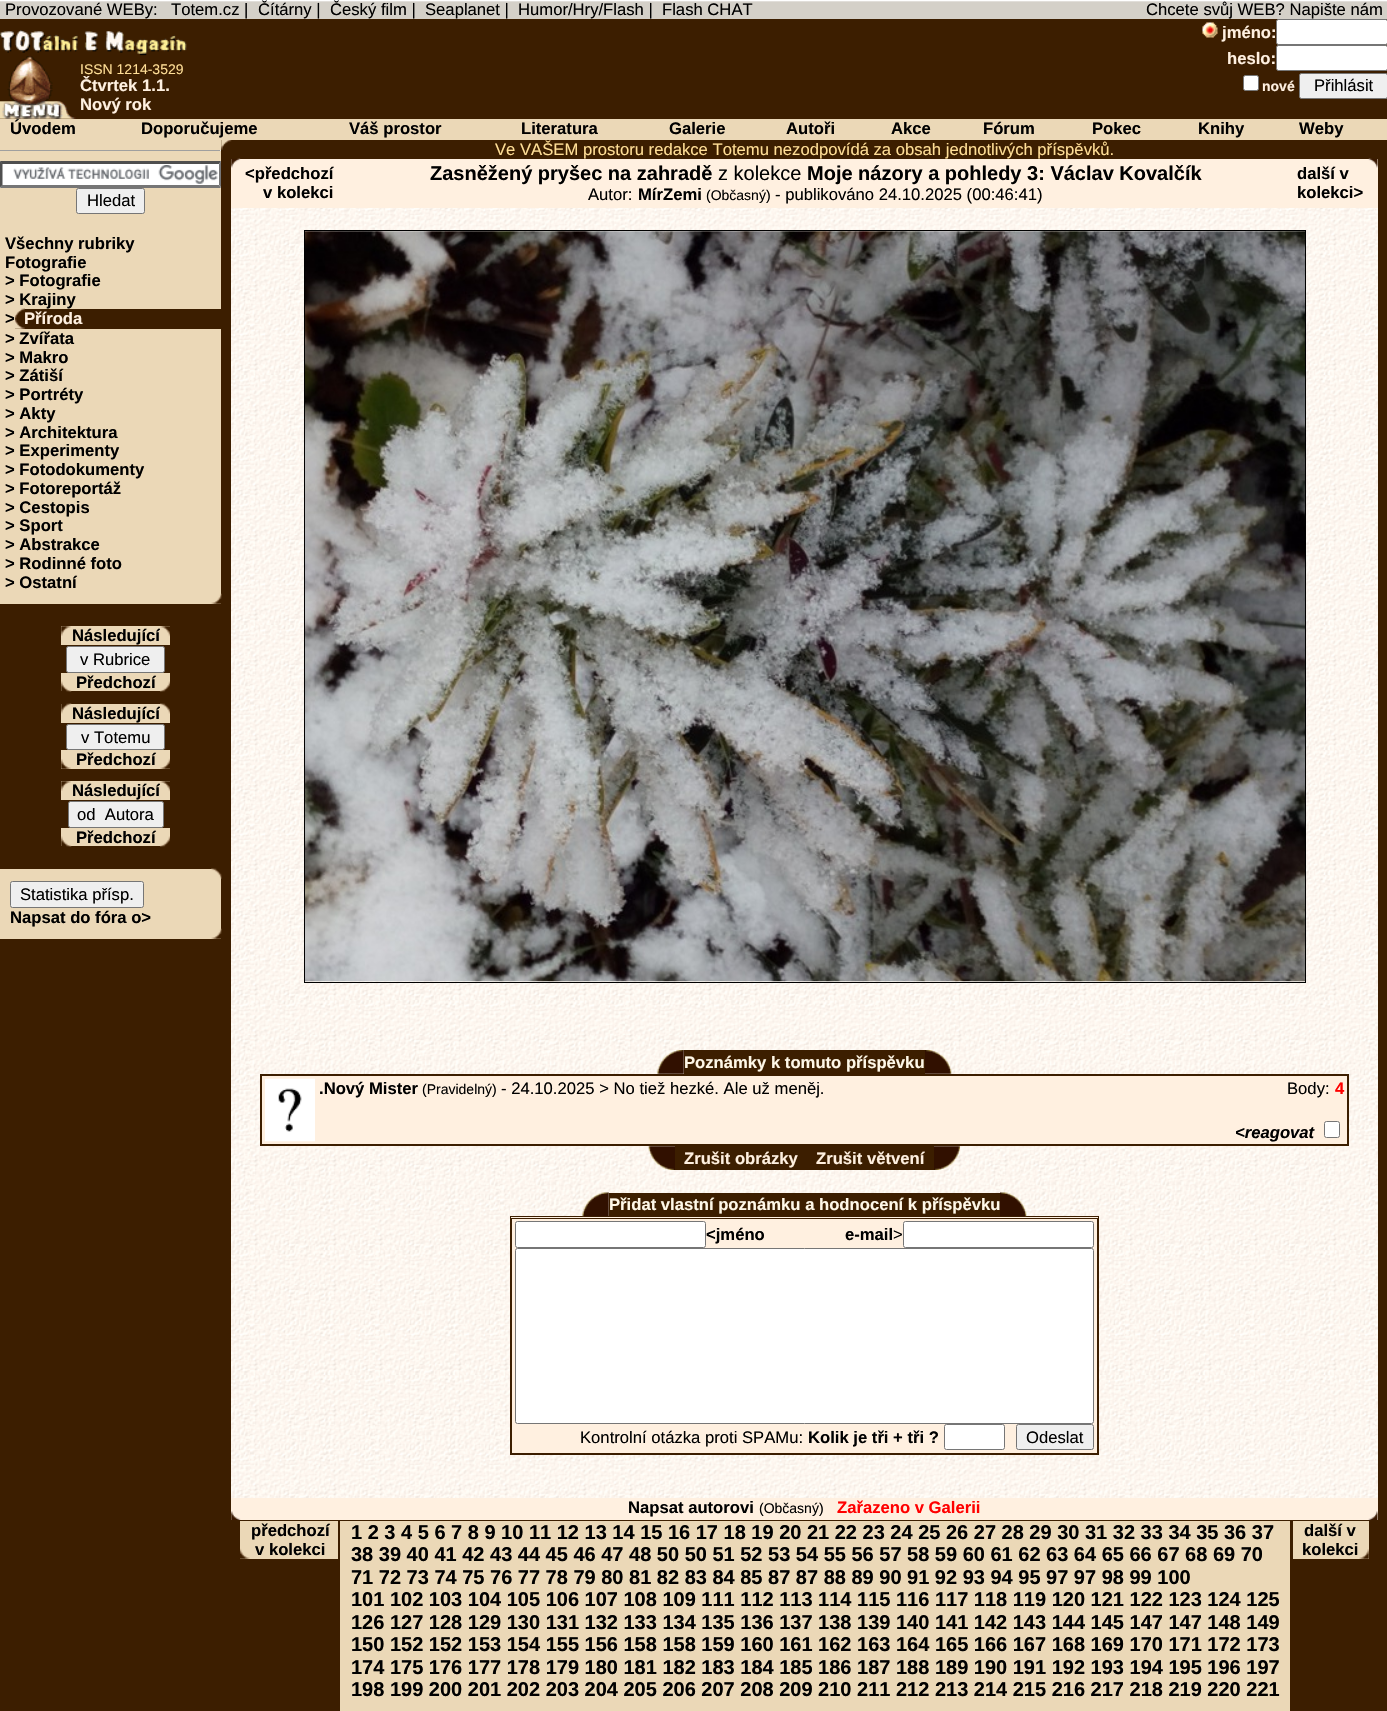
void draw(SkCanvas* canvas) {
	SkPaint paint;
	paint.setAntiAlias(true);
	auto svgPath = [&](const char* data, bool evenOdd = false) {
		SkPath result = *SkParsePath::FromSVGString(data);
		if (evenOdd) result.setFillType(SkPathFillType::kEvenOdd);
		return result;
	};
	canvas->clear(0xffffffff);
	canvas->drawImageRect(SkImages::DeferredFromEncodedData(SkData::MakeFromFileName("img1.png")), SkRect::MakeXYWH(231, 208, 1147, 1290), SkSamplingOptions());
	paint.setColor(0xffd4d0c8);
	canvas->drawRect(SkRect::MakeXYWH(0, 2, 1387, 17), paint);
	canvas->drawImageRect(SkImages::DeferredFromEncodedData(SkData::MakeFromFileName("img2.png")), SkRect::MakeXYWH(0, 0, 1387, 2), SkSamplingOptions());
	SkFont f1(fontMgr->matchFamilyStyle("Liberation Sans", SkFontStyle::Normal()), 16.65);
	f1.setSubpixel(true);
	paint.setColor(0xff000000);
	canvas->drawString("Provozované WEBy:", 5, 15, f1, paint);
	canvas->drawString("Totem.cz |", 171, 15, f1, paint);
	canvas->drawString("Čítárny |", 258, 15, f1, paint);
	canvas->drawString("Český film |", 330, 15, f1, paint);
	canvas->drawString("Seaplanet |", 425, 15, f1, paint);
	canvas->drawString("Humor/Hry/Flash |", 518, 15, f1, paint);
	canvas->drawString("Flash CHAT", 662, 15, f1, paint);
	canvas->drawString("Chcete svůj WEB? Napište nám", 1146, 15, f1, paint);
	paint.setColor(0xff3c1e00);
	canvas->drawRect(SkRect::MakeXYWH(0, 19, 1387, 100), paint);
	canvas->drawImageRect(SkImages::DeferredFromEncodedData(SkData::MakeFromFileName("img3.png")), SkRect::MakeXYWH(0, 30, 187, 26), SkSamplingOptions());
	canvas->drawImageRect(SkImages::DeferredFromEncodedData(SkData::MakeFromFileName("img4.png")), SkRect::MakeXYWH(0, 56, 76, 63), SkSamplingOptions());
	SkFont f2(fontMgr->matchFamilyStyle("Liberation Sans", SkFontStyle::Normal()), 14);
	f2.setSubpixel(true);
	paint.setColor(0xffffde96);
	canvas->drawString("ISSN 1214-3529", 80, 74, f2, paint);
	SkFont f3(fontMgr->matchFamilyStyle("Liberation Sans", SkFontStyle::Bold()), 16.65);
	f3.setSubpixel(true);
	paint.setColor(0xfffff0e0);
	canvas->drawString("Čtvrtek 1.1.", 80, 91, f3, paint);
	canvas->drawString("Nový rok", 80, 110, f3, paint);
	canvas->drawImageRect(SkImages::DeferredFromEncodedData(SkData::MakeFromFileName("img5.png")), SkRect::MakeXYWH(1202, 22, 16, 16), SkSamplingOptions());
	canvas->drawString("jméno:", 1222, 38, f3, paint);
	paint.setColor(0xffffffff);
	canvas->drawRoundRect(SkRect::MakeXYWH(1276.5, 19.5, 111, 25), 2, 2, paint);
	paint.setStroke(true);
	paint.setStrokeWidth(1);
	paint.setColor(0xff767676);
	canvas->drawRoundRect(SkRect::MakeXYWH(1276.5, 19.5, 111, 25), 2, 2, paint);
	paint.setStroke(false);
	paint.setColor(0xfffff0e0);
	canvas->drawString("heslo:", 1227, 64, f3, paint);
	paint.setColor(0xffffffff);
	canvas->drawRoundRect(SkRect::MakeXYWH(1276.5, 45.5, 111, 25), 2, 2, paint);
	paint.setStroke(true);
	paint.setColor(0xff767676);
	canvas->drawRoundRect(SkRect::MakeXYWH(1276.5, 45.5, 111, 25), 2, 2, paint);
	paint.setStroke(false);
	paint.setColor(0xffffffff);
	canvas->drawRoundRect(SkRect::MakeXYWH(1243.5, 75.5, 15, 15), 2, 2, paint);
	paint.setStroke(true);
	paint.setColor(0xff767676);
	canvas->drawRoundRect(SkRect::MakeXYWH(1243.5, 75.5, 15, 15), 2, 2, paint);
	SkFont f4(fontMgr->matchFamilyStyle("Liberation Sans", SkFontStyle::Bold()), 14);
	f4.setSubpixel(true);
	paint.setStroke(false);
	paint.setColor(0xfffff0e0);
	canvas->drawString("nové", 1262, 91, f4, paint);
	paint.setColor(0xffefefef);
	canvas->drawRoundRect(SkRect::MakeXYWH(1299.5, 73.5, 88, 25), 2, 2, paint);
	paint.setStroke(true);
	paint.setColor(0xff767676);
	canvas->drawRoundRect(SkRect::MakeXYWH(1299.5, 73.5, 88, 25), 2, 2, paint);
	paint.setStroke(false);
	paint.setColor(0xff000000);
	canvas->drawString("Přihlásit", 1314, 91, f1, paint);
	paint.setColor(0xffebd8b7);
	canvas->drawRect(SkRect::MakeXYWH(0, 119, 1387, 21), paint);
	paint.setColor(0xff000000);
	canvas->drawString("Úvodem", 10, 134, f3, paint);
	canvas->drawString("Doporučujeme", 141, 134, f3, paint);
	canvas->drawString("Váš prostor", 349, 134, f3, paint);
	canvas->drawString("Literatura", 521, 134, f3, paint);
	canvas->drawString("Galerie", 669, 134, f3, paint);
	canvas->drawString("Autoři", 786, 134, f3, paint);
	canvas->drawString("Akce", 891, 134, f3, paint);
	canvas->drawString("Fórum", 983, 134, f3, paint);
	canvas->drawString("Pokec", 1092, 134, f3, paint);
	canvas->drawString("Knihy", 1198, 134, f3, paint);
	canvas->drawString("Weby", 1299, 134, f3, paint);
	paint.setColor(0xff3c1e00);
	canvas->drawRect(SkRect::MakeXYWH(0, 140, 231, 1571), paint);
	canvas->drawRect(SkRect::MakeXYWH(231, 140, 1147, 19), paint);
	canvas->drawImageRect(SkImages::DeferredFromEncodedData(SkData::MakeFromFileName("img6.png")), SkRect::MakeXYWH(221, 140, 11, 10), SkSamplingOptions());
	paint.setColor(0xffebd8b7);
	canvas->drawRect(SkRect::MakeXYWH(0, 140, 221, 464), paint);
	paint.setColor(0xff9f9f9f);
	canvas->drawRect(SkRect::MakeXYWH(0, 150, 221, 1), paint);
	paint.setColor(0xffeeeeee);
	canvas->drawRect(SkRect::MakeXYWH(220, 150, 1, 1), paint);
	paint.setColor(0xffffffff);
	canvas->drawRect(SkRect::MakeXYWH(0, 161, 221, 27), paint);
	canvas->drawImageRect(SkImages::DeferredFromEncodedData(SkData::MakeFromFileName("img7.png")), SkRect::MakeXYWH(13, 165, 205, 19), SkSamplingOptions());
	paint.setColor(0xff4f4f4f);
	canvas->drawPath(svgPath("M0 161H221L219 164H2Z"), paint);
	paint.setColor(0xff767676);
	canvas->drawPath(svgPath("M221 161V187.5L219 185V164Z"), paint);
	canvas->drawPath(svgPath("M221 188H0L2 185H219Z"), paint);
	paint.setColor(0xff4f4f4f);
	canvas->drawPath(svgPath("M0 187.5V161L2.5 164V185Z"), paint);
	paint.setColor(0xffefefef);
	canvas->drawRoundRect(SkRect::MakeXYWH(76.5, 188.5, 68, 25), 2, 2, paint);
	paint.setStroke(true);
	paint.setColor(0xff767676);
	canvas->drawRoundRect(SkRect::MakeXYWH(76.5, 188.5, 68, 25), 2, 2, paint);
	paint.setStroke(false);
	paint.setColor(0xff000000);
	canvas->drawString("Hledat", 87, 206, f1, paint);
	canvas->drawString("Všechny rubriky", 5, 249, f3, paint);
	canvas->drawString("Fotografie", 5, 268, f3, paint);
	canvas->drawString("> Fotografie", 5, 286, f3, paint);
	canvas->drawString("> Krajiny", 5, 305, f3, paint);
	paint.setColor(0xff3c1e00);
	canvas->drawRect(SkRect::MakeXYWH(15, 309, 206, 20), paint);
	paint.setColor(0xff000000);
	canvas->drawString(">", 5, 324, f3, paint);
	canvas->drawImageRect(SkImages::DeferredFromEncodedData(SkData::MakeFromFileName("img8.png")), SkRect::MakeXYWH(15, 308, 10, 11), SkSamplingOptions());
	paint.setColor(0xfffff0e0);
	canvas->drawString("Příroda", 24, 324, f3, paint);
	canvas->drawImageRect(SkImages::DeferredFromEncodedData(SkData::MakeFromFileName("img9.png")), SkRect::MakeXYWH(15, 319, 10, 10), SkSamplingOptions());
	paint.setColor(0xff000000);
	canvas->drawString("> Zvířata", 5, 344, f3, paint);
	canvas->drawString("> Makro", 5, 363, f3, paint);
	canvas->drawString("> Zátiší", 5, 381, f3, paint);
	canvas->drawString("> Portréty", 5, 400, f3, paint);
	canvas->drawString("> Akty", 5, 419, f3, paint);
	canvas->drawString("> Architektura", 5, 438, f3, paint);
	canvas->drawString("> Experimenty", 5, 456, f3, paint);
	canvas->drawString("> Fotodokumenty", 5, 475, f3, paint);
	canvas->drawString("> Fotoreportáž", 5, 494, f3, paint);
	canvas->drawString("> Cestopis", 5, 513, f3, paint);
	canvas->drawString("> Sport", 5, 531, f3, paint);
	canvas->drawString("> Abstrakce", 5, 550, f3, paint);
	canvas->drawString("> Rodinné foto", 5, 569, f3, paint);
	canvas->drawString("> Ostatní", 5, 588, f3, paint);
	canvas->drawImageRect(SkImages::DeferredFromEncodedData(SkData::MakeFromFileName("img10.png")), SkRect::MakeXYWH(211, 593, 11, 11), SkSamplingOptions());
	paint.setColor(0xffebd8b7);
	canvas->drawRect(SkRect::MakeXYWH(61, 626, 109, 19), paint);
	canvas->drawImageRect(SkImages::DeferredFromEncodedData(SkData::MakeFromFileName("img11.png")), SkRect::MakeXYWH(61, 626, 10, 10), SkSamplingOptions());
	paint.setColor(0xff000000);
	canvas->drawString("Následující", 72, 641, f3, paint);
	canvas->drawImageRect(SkImages::DeferredFromEncodedData(SkData::MakeFromFileName("img12.png")), SkRect::MakeXYWH(160, 626, 10, 11), SkSamplingOptions());
	paint.setColor(0xffefefef);
	canvas->drawRoundRect(SkRect::MakeXYWH(66.5, 646.5, 98, 26), 2, 2, paint);
	paint.setStroke(true);
	paint.setColor(0xff767676);
	canvas->drawRoundRect(SkRect::MakeXYWH(66.5, 646.5, 98, 26), 2, 2, paint);
	paint.setStroke(false);
	paint.setColor(0xff000000);
	canvas->drawString("v Rubrice", 80, 665, f1, paint);
	paint.setColor(0xffebd8b7);
	canvas->drawRect(SkRect::MakeXYWH(61, 673, 109, 18), paint);
	canvas->drawImageRect(SkImages::DeferredFromEncodedData(SkData::MakeFromFileName("img13.png")), SkRect::MakeXYWH(61, 681, 11, 11), SkSamplingOptions());
	paint.setColor(0xff000000);
	canvas->drawString("Předchozí", 76, 688, f3, paint);
	canvas->drawImageRect(SkImages::DeferredFromEncodedData(SkData::MakeFromFileName("img14.png")), SkRect::MakeXYWH(160, 681, 10, 11), SkSamplingOptions());
	paint.setColor(0xffebd8b7);
	canvas->drawRect(SkRect::MakeXYWH(61, 704, 109, 19), paint);
	canvas->drawImageRect(SkImages::DeferredFromEncodedData(SkData::MakeFromFileName("img15.png")), SkRect::MakeXYWH(61, 703, 11, 11), SkSamplingOptions());
	paint.setColor(0xff000000);
	canvas->drawString("Následující", 72, 719, f3, paint);
	canvas->drawImageRect(SkImages::DeferredFromEncodedData(SkData::MakeFromFileName("img16.png")), SkRect::MakeXYWH(160, 703, 10, 11), SkSamplingOptions());
	paint.setColor(0xffefefef);
	canvas->drawRoundRect(SkRect::MakeXYWH(66.5, 724.5, 98, 25), 2, 2, paint);
	paint.setStroke(true);
	paint.setColor(0xff767676);
	canvas->drawRoundRect(SkRect::MakeXYWH(66.5, 724.5, 98, 25), 2, 2, paint);
	paint.setStroke(false);
	paint.setColor(0xff000000);
	canvas->drawString("v Totemu", 81, 743, f1, paint);
	paint.setColor(0xffebd8b7);
	canvas->drawRect(SkRect::MakeXYWH(61, 750, 109, 19), paint);
	canvas->drawImageRect(SkImages::DeferredFromEncodedData(SkData::MakeFromFileName("img17.png")), SkRect::MakeXYWH(61, 759, 10, 10), SkSamplingOptions());
	paint.setColor(0xff000000);
	canvas->drawString("Předchozí", 76, 765, f3, paint);
	canvas->drawImageRect(SkImages::DeferredFromEncodedData(SkData::MakeFromFileName("img18.png")), SkRect::MakeXYWH(160, 758, 10, 11), SkSamplingOptions());
	paint.setColor(0xffebd8b7);
	canvas->drawRect(SkRect::MakeXYWH(61, 781, 109, 19), paint);
	canvas->drawImageRect(SkImages::DeferredFromEncodedData(SkData::MakeFromFileName("img19.png")), SkRect::MakeXYWH(61, 781, 10, 10), SkSamplingOptions());
	paint.setColor(0xff000000);
	canvas->drawString("Následující", 72, 796, f3, paint);
	canvas->drawImageRect(SkImages::DeferredFromEncodedData(SkData::MakeFromFileName("img20.png")), SkRect::MakeXYWH(160, 781, 10, 11), SkSamplingOptions());
	paint.setColor(0xffefefef);
	canvas->drawRoundRect(SkRect::MakeXYWH(68.5, 801.5, 95, 26), 2, 2, paint);
	paint.setStroke(true);
	paint.setColor(0xff767676);
	canvas->drawRoundRect(SkRect::MakeXYWH(68.5, 801.5, 95, 26), 2, 2, paint);
	paint.setStroke(false);
	paint.setColor(0xff000000);
	canvas->drawString("od  Autora", 77, 820, f1, paint);
	paint.setColor(0xffebd8b7);
	canvas->drawRect(SkRect::MakeXYWH(61, 828, 109, 18), paint);
	canvas->drawImageRect(SkImages::DeferredFromEncodedData(SkData::MakeFromFileName("img13.png")), SkRect::MakeXYWH(61, 836, 11, 11), SkSamplingOptions());
	paint.setColor(0xff000000);
	canvas->drawString("Předchozí", 76, 843, f3, paint);
	canvas->drawImageRect(SkImages::DeferredFromEncodedData(SkData::MakeFromFileName("img14.png")), SkRect::MakeXYWH(160, 836, 10, 11), SkSamplingOptions());
	paint.setColor(0xffebd8b7);
	canvas->drawRect(SkRect::MakeXYWH(0, 869, 221, 70), paint);
	canvas->drawImageRect(SkImages::DeferredFromEncodedData(SkData::MakeFromFileName("img21.png")), SkRect::MakeXYWH(211, 868, 11, 11), SkSamplingOptions());
	paint.setColor(0xffefefef);
	canvas->drawRoundRect(SkRect::MakeXYWH(10.5, 881.5, 133, 26), 2, 2, paint);
	paint.setStroke(true);
	paint.setColor(0xff767676);
	canvas->drawRoundRect(SkRect::MakeXYWH(10.5, 881.5, 133, 26), 2, 2, paint);
	paint.setStroke(false);
	paint.setColor(0xff000000);
	canvas->drawString("Statistika přísp.", 20, 900, f1, paint);
	canvas->drawString("Napsat do fóra o>", 10, 923, f3, paint);
	canvas->drawImageRect(SkImages::DeferredFromEncodedData(SkData::MakeFromFileName("img10.png")), SkRect::MakeXYWH(211, 928, 11, 11), SkSamplingOptions());
	paint.setColor(0xffffde96);
	canvas->drawString("Ve VAŠEM prostoru redakce Totemu nezodpovídá za obsah jednotlivých příspěvků.", 495, 155, f1, paint);
	paint.setColor(0xfffff0e0);
	canvas->drawRect(SkRect::MakeXYWH(231, 159, 1147, 49), paint);
	canvas->drawImageRect(SkImages::DeferredFromEncodedData(SkData::MakeFromFileName("img22.png")), SkRect::MakeXYWH(231, 158, 10, 10), SkSamplingOptions());
	canvas->drawImageRect(SkImages::DeferredFromEncodedData(SkData::MakeFromFileName("img23.png")), SkRect::MakeXYWH(1368, 158, 10, 10), SkSamplingOptions());
	paint.setColor(0xff000000);
	canvas->drawString("<předchozí", 245, 179, f3, paint);
	canvas->drawString("v kolekci", 263, 198, f3, paint);
	SkFont f5(fontMgr->matchFamilyStyle("Liberation Sans", SkFontStyle::Bold()), 20);
	f5.setSubpixel(true);
	canvas->drawString("Zasněžený pryšec na zahradě", 430, 180, f5, paint);
	SkFont f6(fontMgr->matchFamilyStyle("Liberation Sans", SkFontStyle::Normal()), 20);
	f6.setSubpixel(true);
	canvas->drawString("z kolekce", 718, 180, f6, paint);
	canvas->drawString("Moje názory a pohledy 3: Václav Kovalčík", 807, 180, f5, paint);
	canvas->drawString("Autor:", 588, 200, f1, paint);
	canvas->drawString("MírZemi", 638, 200, f3, paint);
	canvas->drawString("(Občasný)", 706, 200, f2, paint);
	canvas->drawString("- publikováno 24.10.2025 (00:46:41)", 775, 200, f1, paint);
	canvas->drawString("další v", 1297, 179, f3, paint);
	canvas->drawString("kolekci>", 1297, 198, f3, paint);
	paint.setStroke(true);
	canvas->drawRect(SkRect::MakeXYWH(304.5, 230.5, 1001, 752), paint);
	canvas->drawImageRect(SkImages::DeferredFromEncodedData(SkData::MakeFromFileName("img24.png")), SkRect::MakeXYWH(305, 231, 1000, 751), SkSamplingOptions());
	canvas->drawImageRect(SkImages::DeferredFromEncodedData(SkData::MakeFromFileName("img25.png")), SkRect::MakeXYWH(657, 1050, 27, 24), SkSamplingOptions());
	paint.setStroke(false);
	paint.setColor(0xff3c1e00);
	canvas->drawRect(SkRect::MakeXYWH(684, 1050, 241, 24), paint);
	paint.setColor(0xfffff8e8);
	canvas->drawString("Poznámky k tomuto příspěvku", 684, 1068, f3, paint);
	canvas->drawImageRect(SkImages::DeferredFromEncodedData(SkData::MakeFromFileName("img26.png")), SkRect::MakeXYWH(925, 1050, 27, 24), SkSamplingOptions());
	paint.setColor(0xfffff0e0);
	canvas->drawRect(SkRect::MakeXYWH(262, 1076, 1085, 68), paint);
	paint.setStroke(true);
	paint.setColor(0xff3c1e00);
	canvas->drawRect(SkRect::MakeXYWH(260.5, 1074.5, 1088, 71), paint);
	canvas->drawRect(SkRect::MakeXYWH(261.5, 1075.5, 1086, 69), paint);
	canvas->drawImageRect(SkImages::DeferredFromEncodedData(SkData::MakeFromFileName("img27.png")), SkRect::MakeXYWH(265, 1078, 50, 64), SkSamplingOptions());
	paint.setStroke(false);
	paint.setColor(0xff000000);
	canvas->drawString(".Nový Mister", 319, 1094, f3, paint);
	canvas->drawString("(Pravidelný)", 422, 1094, f2, paint);
	canvas->drawString("- 24.10.2025 > No tiež hezké. Ale už meněj.", 501, 1094, f1, paint);
	canvas->drawString("Body:", 1287, 1094, f1, paint);
	paint.setColor(0xffff0000);
	canvas->drawString("4", 1335, 1094, f3, paint);
	SkFont f7(fontMgr->matchFamilyStyle("Liberation Sans", SkFontStyle::BoldItalic()), 16.65);
	f7.setSubpixel(true);
	paint.setColor(0xff000000);
	canvas->drawString("<reagovat", 1235, 1138, f7, paint);
	paint.setColor(0xffffffff);
	canvas->drawRoundRect(SkRect::MakeXYWH(1324.5, 1121.5, 15, 16), 2, 2, paint);
	paint.setStroke(true);
	paint.setColor(0xff767676);
	canvas->drawRoundRect(SkRect::MakeXYWH(1324.5, 1121.5, 15, 16), 2, 2, paint);
	canvas->drawImageRect(SkImages::DeferredFromEncodedData(SkData::MakeFromFileName("img28.png")), SkRect::MakeXYWH(648, 1146, 27, 24), SkSamplingOptions());
	paint.setStroke(false);
	paint.setColor(0xff3c1e00);
	canvas->drawRect(SkRect::MakeXYWH(675, 1146, 259, 24), paint);
	paint.setColor(0xfffff0e0);
	canvas->drawString("Zrušit obrázky", 684, 1164, f3, paint);
	canvas->drawString("Zrušit větvení", 816, 1164, f3, paint);
	canvas->drawImageRect(SkImages::DeferredFromEncodedData(SkData::MakeFromFileName("img29.png")), SkRect::MakeXYWH(934, 1146, 26, 24), SkSamplingOptions());
	canvas->drawRect(SkRect::MakeXYWH(511, 1217, 587, 236), paint);
	paint.setStroke(true);
	paint.setColor(0xff3c1e00);
	canvas->drawRect(SkRect::MakeXYWH(510.5, 1216.5, 588, 238), paint);
	canvas->drawImageRect(SkImages::DeferredFromEncodedData(SkData::MakeFromFileName("img30.png")), SkRect::MakeXYWH(582, 1192, 27, 25), SkSamplingOptions());
	paint.setStroke(false);
	canvas->drawRect(SkRect::MakeXYWH(609, 1193, 391, 23), paint);
	paint.setColor(0xfffff8e8);
	canvas->drawString("Přidat vlastní poznámku a hodnocení k příspěvku", 609, 1210, f3, paint);
	canvas->drawImageRect(SkImages::DeferredFromEncodedData(SkData::MakeFromFileName("img31.png")), SkRect::MakeXYWH(1000, 1192, 27, 25), SkSamplingOptions());
	paint.setStroke(true);
	paint.setColor(0xff3c1e00);
	canvas->drawRect(SkRect::MakeXYWH(511.5, 1218.5, 586, 235), paint);
	paint.setStroke(false);
	paint.setColor(0xffffffff);
	canvas->drawRoundRect(SkRect::MakeXYWH(515.5, 1221.5, 190, 26), 2, 2, paint);
	paint.setStroke(true);
	paint.setColor(0xff767676);
	canvas->drawRoundRect(SkRect::MakeXYWH(515.5, 1221.5, 190, 26), 2, 2, paint);
	paint.setStroke(false);
	paint.setColor(0xff000000);
	canvas->drawString("<jméno", 706, 1240, f3, paint);
	canvas->drawString("e-mail", 845, 1240, f3, paint);
	canvas->drawString(">", 893, 1240, f1, paint);
	paint.setColor(0xffffffff);
	canvas->drawRoundRect(SkRect::MakeXYWH(903.5, 1221.5, 190, 26), 2, 2, paint);
	paint.setStroke(true);
	paint.setColor(0xff767676);
	canvas->drawRoundRect(SkRect::MakeXYWH(903.5, 1221.5, 190, 26), 2, 2, paint);
	paint.setStroke(false);
	paint.setColor(0xffffffff);
	canvas->drawRoundRect(SkRect::MakeXYWH(515.5, 1248.5, 578, 175), 2, 2, paint);
	paint.setStroke(true);
	paint.setColor(0xff767676);
	canvas->drawRoundRect(SkRect::MakeXYWH(515.5, 1248.5, 578, 175), 2, 2, paint);
	paint.setStroke(false);
	paint.setColor(0xff000000);
	canvas->drawString("Kontrolní otázka proti SPAMu:", 580, 1443, f1, paint);
	canvas->drawString("Kolik je tři + tři ?", 808, 1443, f3, paint);
	paint.setColor(0xffffffff);
	canvas->drawRoundRect(SkRect::MakeXYWH(944.5, 1424.5, 60, 25), 2, 2, paint);
	paint.setStroke(true);
	paint.setColor(0xff767676);
	canvas->drawRoundRect(SkRect::MakeXYWH(944.5, 1424.5, 60, 25), 2, 2, paint);
	paint.setStroke(false);
	paint.setColor(0xffefefef);
	canvas->drawRoundRect(SkRect::MakeXYWH(1016.5, 1424.5, 77, 25), 2, 2, paint);
	paint.setStroke(true);
	paint.setColor(0xff767676);
	canvas->drawRoundRect(SkRect::MakeXYWH(1016.5, 1424.5, 77, 25), 2, 2, paint);
	paint.setStroke(false);
	paint.setColor(0xff000000);
	canvas->drawString("Odeslat", 1026, 1443, f1, paint);
	paint.setColor(0xff3c1e00);
	canvas->drawRect(SkRect::MakeXYWH(1378, 140, 9, 1380), paint);
	paint.setColor(0xfffff0e0);
	canvas->drawRect(SkRect::MakeXYWH(231, 1498, 1147, 22), paint);
	canvas->drawImageRect(SkImages::DeferredFromEncodedData(SkData::MakeFromFileName("img32.png")), SkRect::MakeXYWH(231, 1511, 10, 9), SkSamplingOptions());
	paint.setColor(0xff000000);
	canvas->drawString("Napsat autorovi", 628, 1513, f3, paint);
	canvas->drawString("(Občasný)", 759, 1513, f2, paint);
	paint.setColor(0xffff0000);
	canvas->drawString("Zařazeno v Galerii", 837, 1513, f3, paint);
	canvas->drawImageRect(SkImages::DeferredFromEncodedData(SkData::MakeFromFileName("img33.png")), SkRect::MakeXYWH(1368, 1511, 10, 9), SkSamplingOptions());
	paint.setColor(0xff3c1e00);
	canvas->drawRect(SkRect::MakeXYWH(231, 1520, 1156, 191), paint);
	paint.setColor(0xffebd8b7);
	canvas->drawRect(SkRect::MakeXYWH(240, 1521, 98, 38), paint);
	canvas->drawImageRect(SkImages::DeferredFromEncodedData(SkData::MakeFromFileName("img34.png")), SkRect::MakeXYWH(240, 1548, 10, 11), SkSamplingOptions());
	paint.setColor(0xff000000);
	canvas->drawString("předchozí", 251, 1536, f3, paint);
	canvas->drawString("v kolekci", 255, 1555, f3, paint);
	paint.setColor(0xffebd8b7);
	canvas->drawRect(SkRect::MakeXYWH(340, 1521, 950, 190), paint);
	paint.setColor(0xff000000);
	canvas->drawString("1 2 3 4 5 6 7 8 9 10 11 12 13 14 15 16 17 18 19 20 21 22 23 24 25 26 27 28 29 30 31 32 33 34 35 36 37", 351, 1539, f5, paint);
	canvas->drawString("38 39 40 41 42 43 44 45 46 47 48 50 50 51 52 53 54 55 56 57 58 59 60 61 62 63 64 65 66 67 68 69 70", 351, 1561, f5, paint);
	canvas->drawString("71 72 73 74 75 76 77 78 79 80 81 82 83 84 85 87 87 88 89 90 91 92 93 94 95 97 97 98 99 100", 351, 1584, f5, paint);
	canvas->drawString("101 102 103 104 105 106 107 108 109 111 112 113 114 115 116 117 118 119 120 121 122 123 124 125", 351, 1606, f5, paint);
	canvas->drawString("126 127 128 129 130 131 132 133 134 135 136 137 138 139 140 141 142 143 144 145 147 147 148 149", 351, 1629, f5, paint);
	canvas->drawString("150 152 152 153 154 155 156 158 158 159 160 161 162 163 164 165 166 167 168 169 170 171 172 173", 351, 1651, f5, paint);
	canvas->drawString("174 175 176 177 178 179 180 181 182 183 184 185 186 187 188 189 190 191 192 193 194 195 196 197", 351, 1674, f5, paint);
	canvas->drawString("198 199 200 201 202 203 204 205 206 207 208 209 210 211 212 213 214 215 216 217 218 219 220 221", 351, 1696, f5, paint);
	paint.setColor(0xffebd8b7);
	canvas->drawRect(SkRect::MakeXYWH(1293, 1521, 76, 38), paint);
	paint.setColor(0xff000000);
	canvas->drawString("další v", 1304, 1536, f3, paint);
	canvas->drawString("kolekci", 1302, 1555, f3, paint);
	canvas->drawImageRect(SkImages::DeferredFromEncodedData(SkData::MakeFromFileName("img35.png")), SkRect::MakeXYWH(1359, 1549, 10, 10), SkSamplingOptions());
}
